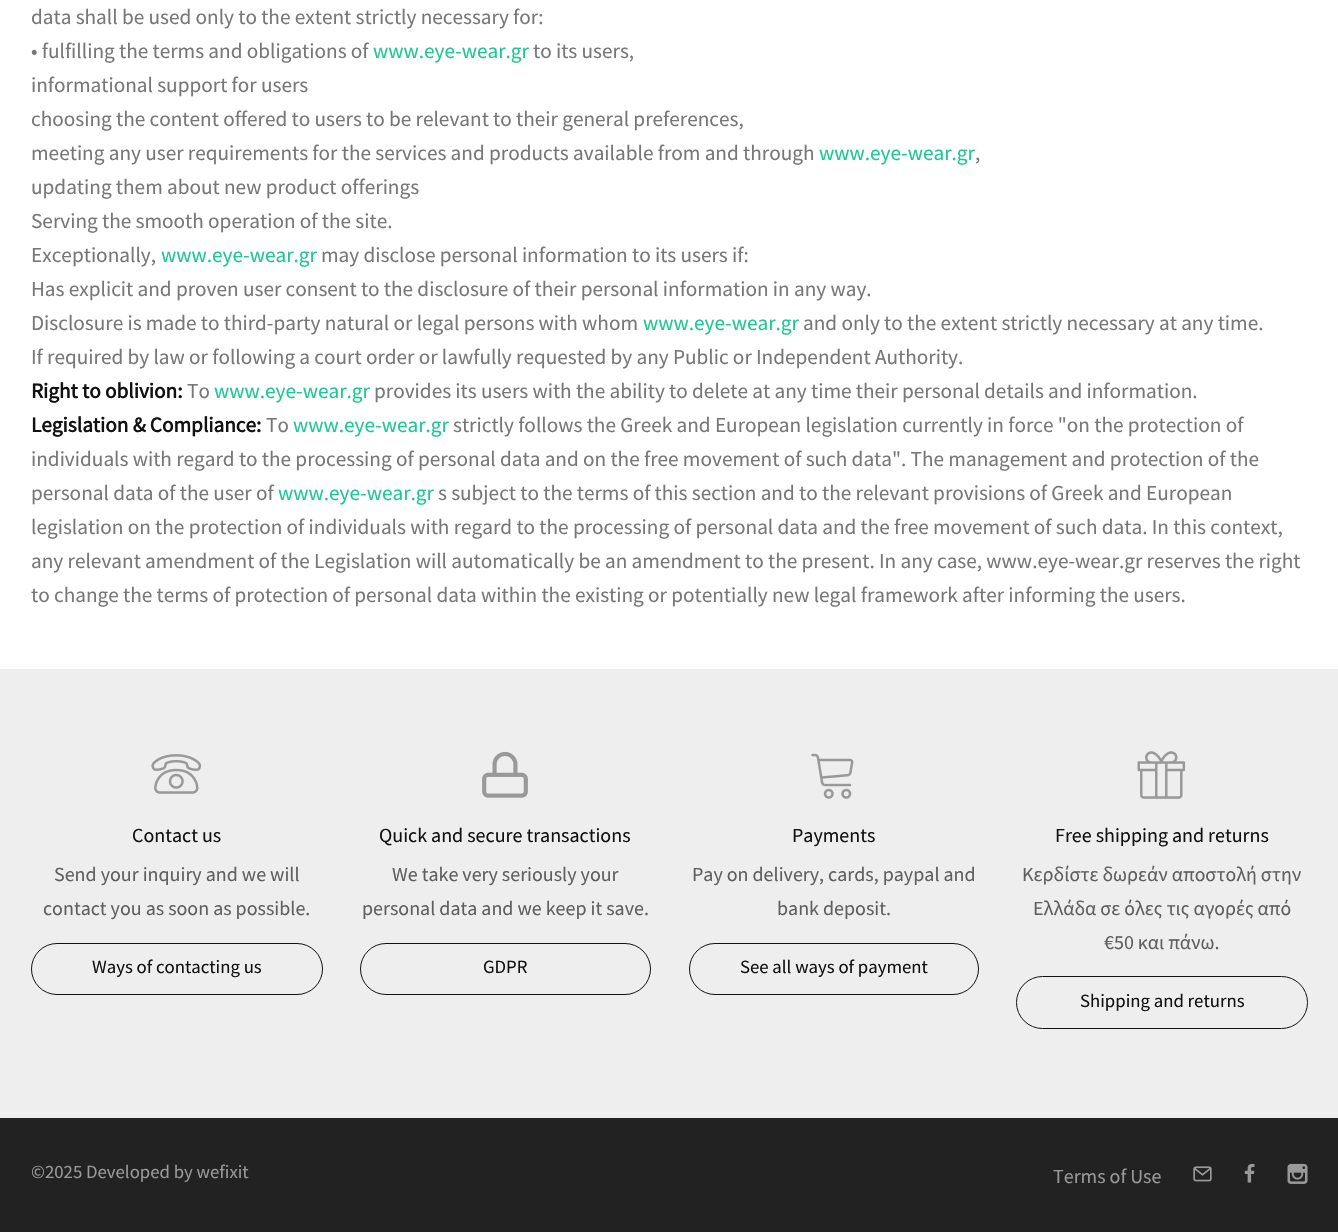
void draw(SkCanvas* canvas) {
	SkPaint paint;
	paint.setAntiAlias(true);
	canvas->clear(0xffffffff);
	SkFont f1(fontMgr->matchFamilyStyle("Source Sans Pro", SkFontStyle::Normal()), 21.25);
	f1.setSubpixel(true);
	paint.setColor(0xff777777);
	canvas->drawString("data shall be used only to the extent strictly necessary for:", 31, 24, f1, paint);
	canvas->drawString("• fulfilling the terms and obligations of", 31, 58, f1, paint);
	paint.setColor(0xff20c596);
	canvas->drawString("www.eye-wear.gr", 373, 58, f1, paint);
	paint.setColor(0xff777777);
	canvas->drawString("to its users,", 533, 58, f1, paint);
	canvas->drawString("informational support for users", 31, 92, f1, paint);
	canvas->drawString("choosing the content offered to users to be relevant to their general preferences,", 31, 126, f1, paint);
	canvas->drawString("meeting any user requirements for the services and products available from and through", 31, 160, f1, paint);
	paint.setColor(0xff20c596);
	canvas->drawString("www.eye-wear.gr", 819, 160, f1, paint);
	paint.setColor(0xff777777);
	canvas->drawString(",", 975, 160, f1, paint);
	canvas->drawString("updating them about new product offerings", 31, 194, f1, paint);
	canvas->drawString("Serving the smooth operation of the site.", 31, 228, f1, paint);
	canvas->drawString("Exceptionally,", 31, 262, f1, paint);
	paint.setColor(0xff20c596);
	canvas->drawString("www.eye-wear.gr", 161, 262, f1, paint);
	paint.setColor(0xff777777);
	canvas->drawString("may disclose personal information to its users if:", 321, 262, f1, paint);
	canvas->drawString("Has explicit and proven user consent to the disclosure of their personal information in any way.", 31, 296, f1, paint);
	canvas->drawString("Disclosure is made to third-party natural or legal persons with whom", 31, 330, f1, paint);
	paint.setColor(0xff20c596);
	canvas->drawString("www.eye-wear.gr", 643, 330, f1, paint);
	paint.setColor(0xff777777);
	canvas->drawString("and only to the extent strictly necessary at any time.", 803, 330, f1, paint);
	canvas->drawString("If required by law or following a court order or lawfully requested by any Public or Independent Authority.", 31, 364, f1, paint);
	SkFont f2(fontMgr->matchFamilyStyle("Source Sans Pro", SkFontStyle::Bold()), 21.25);
	f2.setSubpixel(true);
	paint.setColor(0xff111111);
	canvas->drawString("Right to oblivion:", 31, 398, f2, paint);
	paint.setColor(0xff777777);
	canvas->drawString("Το", 187, 398, f1, paint);
	paint.setColor(0xff20c596);
	canvas->drawString("www.eye-wear.gr", 214, 398, f1, paint);
	paint.setColor(0xff777777);
	canvas->drawString("provides its users with the ability to delete at any time their personal details and information.", 374, 398, f1, paint);
	paint.setColor(0xff111111);
	canvas->drawString("Legislation & Compliance:", 31, 432, f2, paint);
	paint.setColor(0xff777777);
	canvas->drawString("Το", 266, 432, f1, paint);
	paint.setColor(0xff20c596);
	canvas->drawString("www.eye-wear.gr", 293, 432, f1, paint);
	paint.setColor(0xff777777);
	canvas->drawString("strictly follows the Greek and European legislation currently in force \"on the protection of", 453, 432, f1, paint);
	canvas->drawString("individuals with regard to the processing of personal data and on the free movement of such data\". The management and protection of the", 31, 466, f1, paint);
	canvas->drawString("personal data of the user of", 31, 500, f1, paint);
	paint.setColor(0xff20c596);
	canvas->drawString("www.eye-wear.gr", 278, 500, f1, paint);
	paint.setColor(0xff777777);
	canvas->drawString("s subject to the terms of this section and to the relevant provisions of Greek and European", 438, 500, f1, paint);
	canvas->drawString("legislation on the protection of individuals with regard to the processing of personal data and the free movement of such data. In this context,", 31, 534, f1, paint);
	canvas->drawString("any relevant amendment of the Legislation will automatically be an amendment to the present. In any case, www.eye-wear.gr reserves the right", 31, 568, f1, paint);
	canvas->drawString("to change the terms of protection of personal data within the existing or potentially new legal framework after informing the users.", 31, 602, f1, paint);
	paint.setColor(0xffeeeeee);
	canvas->drawRect(SkRect::MakeXYWH(0, 669, 1338, 449), paint);
	canvas->drawImageRect(SkImages::DeferredFromEncodedData(SkData::MakeFromFileName("img1.png")), SkRect::MakeXYWH(151, 754, 51, 40), SkSamplingOptions());
	SkFont f3(fontMgr->matchFamilyStyle("Source Sans Pro", SkFontStyle::Normal()), 20);
	f3.setSubpixel(true);
	paint.setColor(0xff111111);
	canvas->drawString("Contact us", 132, 842, f3, paint);
	paint.setColor(0xff5f5f5f);
	canvas->drawString("Send your inquiry and we will", 54, 881, f3, paint);
	canvas->drawString("contact you as soon as possible.", 43, 915, f3, paint);
	paint.setStroke(true);
	paint.setStrokeWidth(1);
	paint.setColor(0xff111111);
	canvas->drawRoundRect(SkRect::MakeXYWH(31.5, 943.5, 291, 51), 25.5, 25.5, paint);
	SkFont f4(fontMgr->matchFamilyStyle("Source Sans Pro", SkFontStyle::Normal()), 18.75);
	f4.setSubpixel(true);
	paint.setStroke(false);
	canvas->drawString("Ways of contacting us", 92, 973, f4, paint);
	canvas->drawImageRect(SkImages::DeferredFromEncodedData(SkData::MakeFromFileName("img2.png")), SkRect::MakeXYWH(482, 751, 46, 47), SkSamplingOptions());
	canvas->drawString("Quick and secure transactions", 379, 842, f3, paint);
	paint.setColor(0xff5f5f5f);
	canvas->drawString("We take very seriously your", 392, 881, f3, paint);
	canvas->drawString("personal data and we keep it save.", 362, 915, f3, paint);
	paint.setStroke(true);
	paint.setColor(0xff111111);
	canvas->drawRoundRect(SkRect::MakeXYWH(360.5, 943.5, 290, 51), 25.5, 25.5, paint);
	paint.setStroke(false);
	canvas->drawString("GDPR", 483, 973, f4, paint);
	canvas->drawImageRect(SkImages::DeferredFromEncodedData(SkData::MakeFromFileName("img3.png")), SkRect::MakeXYWH(811, 753, 43, 46), SkSamplingOptions());
	canvas->drawString("Payments", 792, 842, f3, paint);
	paint.setColor(0xff5f5f5f);
	canvas->drawString("Pay on delivery, cards, paypal and", 692, 881, f3, paint);
	canvas->drawString("bank deposit.", 777, 915, f3, paint);
	paint.setStroke(true);
	paint.setColor(0xff111111);
	canvas->drawRoundRect(SkRect::MakeXYWH(689.5, 943.5, 289, 51), 25.5, 25.5, paint);
	paint.setStroke(false);
	canvas->drawString("See all ways of payment", 740, 973, f4, paint);
	canvas->drawImageRect(SkImages::DeferredFromEncodedData(SkData::MakeFromFileName("img4.png")), SkRect::MakeXYWH(1137, 751, 49, 48), SkSamplingOptions());
	canvas->drawString("Free shipping and returns", 1055, 842, f3, paint);
	paint.setColor(0xff5f5f5f);
	canvas->drawString("Κερδίστε δωρεάν αποστολή στην", 1022, 881, f3, paint);
	canvas->drawString("Ελλάδα σε όλες τις αγορές από", 1033, 915, f3, paint);
	canvas->drawString("€50 και πάνω.", 1104, 949, f3, paint);
	paint.setStroke(true);
	paint.setColor(0xff111111);
	canvas->drawRoundRect(SkRect::MakeXYWH(1016.5, 976.5, 291, 52), 26, 26, paint);
	paint.setStroke(false);
	canvas->drawString("Shipping and returns", 1080, 1007, f4, paint);
	paint.setColor(0xff222222);
	canvas->drawRect(SkRect::MakeXYWH(0, 1118, 1338, 114), paint);
	paint.setColor(0xff999999);
	canvas->drawString("©2025 Developed by wefixit", 31, 1178, f4, paint);
	canvas->drawString("Terms of Use", 1053, 1183, f3, paint);
	canvas->drawImageRect(SkImages::DeferredFromEncodedData(SkData::MakeFromFileName("img5.png")), SkRect::MakeXYWH(1193, 1166, 19, 16), SkSamplingOptions());
	canvas->drawImageRect(SkImages::DeferredFromEncodedData(SkData::MakeFromFileName("img6.png")), SkRect::MakeXYWH(1244, 1163, 11, 20), SkSamplingOptions());
	canvas->drawImageRect(SkImages::DeferredFromEncodedData(SkData::MakeFromFileName("img7.png")), SkRect::MakeXYWH(1287, 1163, 21, 21), SkSamplingOptions());
}
